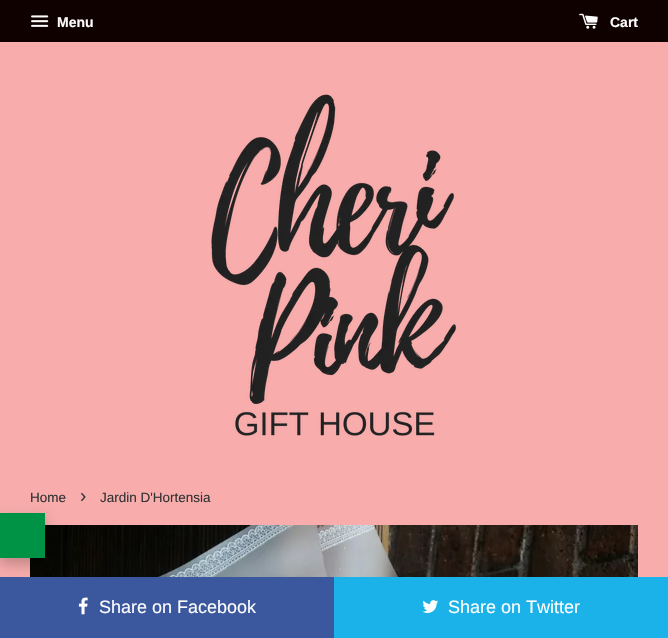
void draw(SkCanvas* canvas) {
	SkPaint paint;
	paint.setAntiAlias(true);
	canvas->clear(0xfff8acac);
	paint.setColor(0xff100101);
	canvas->drawRect(SkRect::MakeXYWH(0, 0, 668, 42), paint);
	canvas->drawImageRect(SkImages::DeferredFromEncodedData(SkData::MakeFromFileName("img1.png")), SkRect::MakeXYWH(31, 15, 18, 12), SkSamplingOptions());
	SkFont f1(fontMgr->matchFamilyStyle("Liberation Sans", SkFontStyle::Bold()), 14);
	f1.setSubpixel(true);
	paint.setColor(0xfffcfcfc);
	canvas->drawString("Menu", 57, 27, f1, paint);
	canvas->drawImageRect(SkImages::DeferredFromEncodedData(SkData::MakeFromFileName("img2.png")), SkRect::MakeXYWH(579, 13, 19, 16), SkSamplingOptions());
	canvas->drawString("Cart", 610, 27, f1, paint);
	canvas->drawImageRect(SkImages::DeferredFromEncodedData(SkData::MakeFromFileName("img3.png")), SkRect::MakeXYWH(211, 94, 245, 342), SkSamplingOptions());
	SkFont f2(fontMgr->matchFamilyStyle("Liberation Sans", SkFontStyle::Normal()), 13.5);
	f2.setSubpixel(true);
	paint.setColor(0xff333333);
	canvas->drawString("Home", 30, 502, f2, paint);
	SkFont f3(fontMgr->matchFamilyStyle("Liberation Sans", SkFontStyle::Normal()), 19);
	f3.setSubpixel(true);
	canvas->drawString("›", 80, 502, f3, paint);
	canvas->drawString("Jardin D'Hortensia", 100, 502, f2, paint);
	canvas->drawImageRect(SkImages::DeferredFromEncodedData(SkData::MakeFromFileName("img4.png")), SkRect::MakeXYWH(30, 525, 608, 52), SkSamplingOptions());
	paint.setColor(0x3b000000);
	paint.setMaskFilter(SkMaskFilter::MakeBlur(kNormal_SkBlurStyle, 6.5));
	canvas->drawRect(SkRect::MakeXYWH(0, 519, 45, 45), paint);
	paint.setMaskFilter(nullptr);
	paint.setColor(0xff009245);
	canvas->drawRect(SkRect::MakeXYWH(0, 513, 45, 45), paint);
	paint.setColor(0xff3b579d);
	canvas->drawRect(SkRect::MakeXYWH(0, 577, 334, 61), paint);
	canvas->drawImageRect(SkImages::DeferredFromEncodedData(SkData::MakeFromFileName("img5.png")), SkRect::MakeXYWH(78, 597, 10, 18), SkSamplingOptions());
	SkFont f4(fontMgr->matchFamilyStyle("Liberation Sans", SkFontStyle::Normal()), 18);
	f4.setSubpixel(true);
	paint.setColor(0xfffcfcfc);
	canvas->drawString("Share on Facebook", 99, 613, f4, paint);
	paint.setColor(0xff1bb2e9);
	canvas->drawRect(SkRect::MakeXYWH(334, 577, 334, 61), paint);
	canvas->drawImageRect(SkImages::DeferredFromEncodedData(SkData::MakeFromFileName("img6.png")), SkRect::MakeXYWH(422, 600, 17, 13), SkSamplingOptions());
	paint.setColor(0xfffcfcfc);
	canvas->drawString("Share on Twitter", 448, 613, f4, paint);
}
